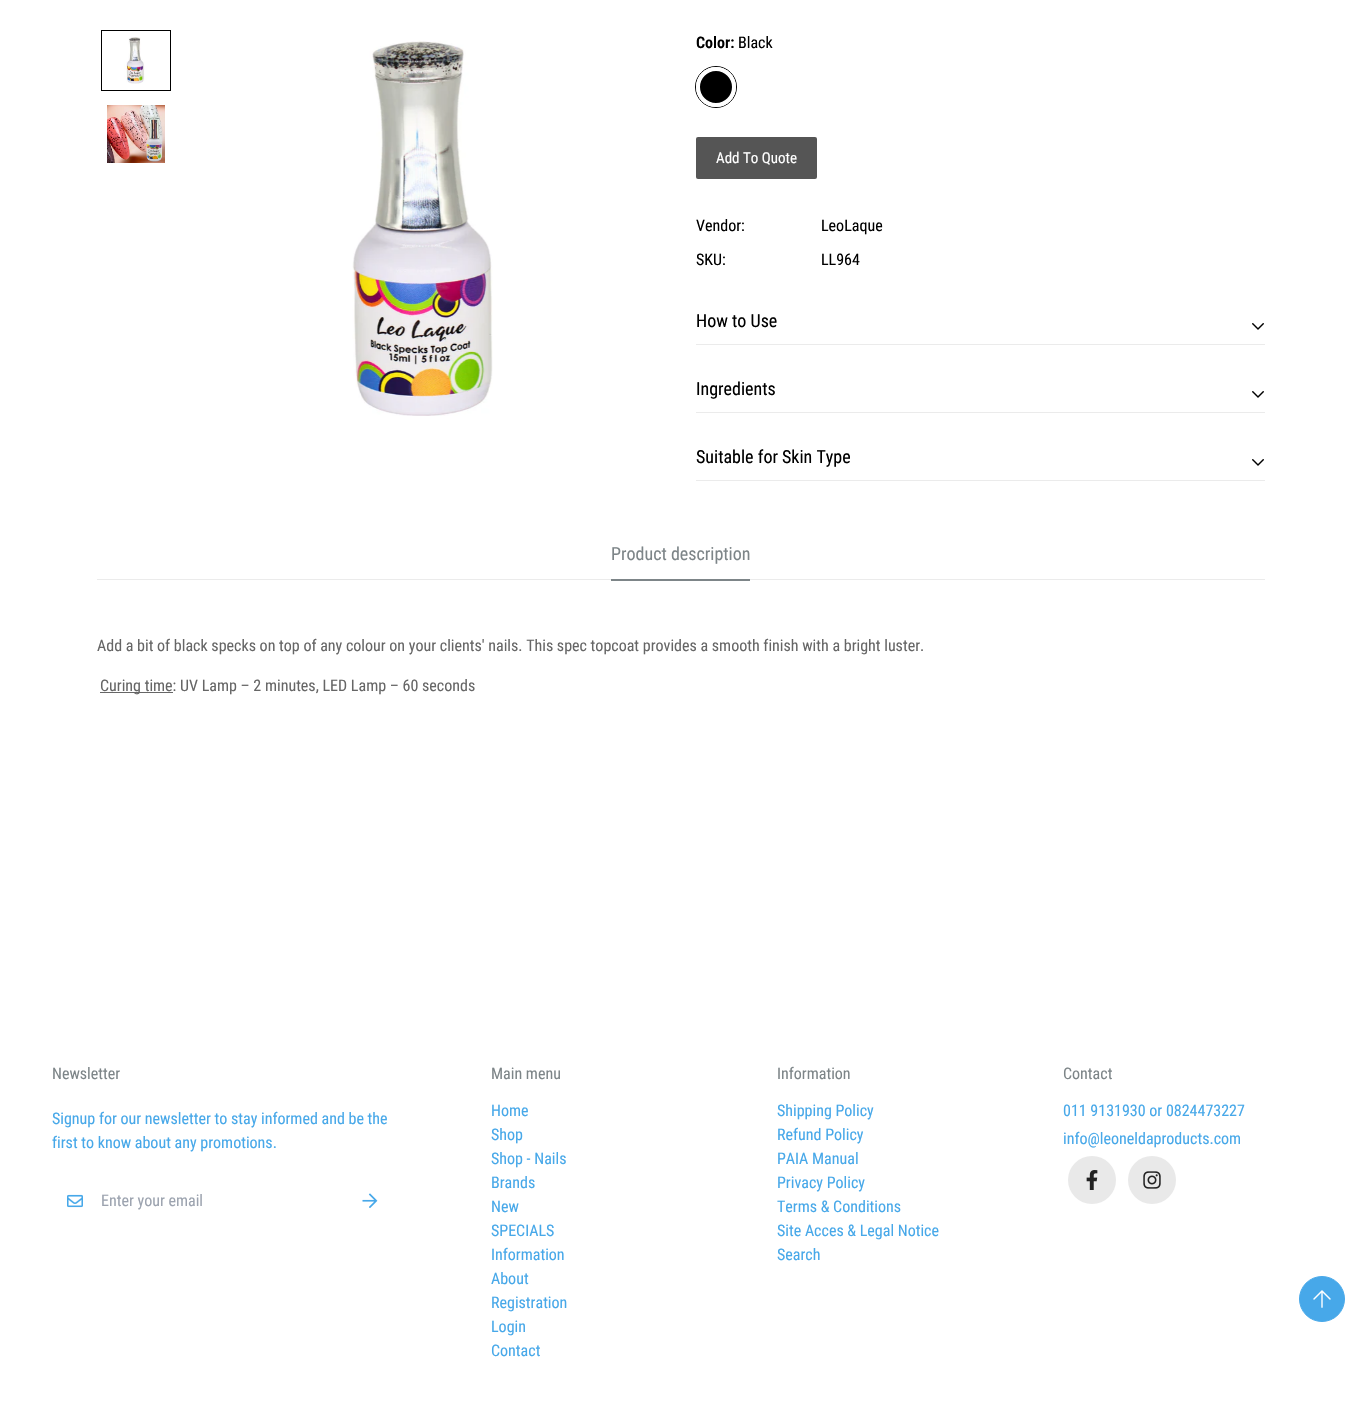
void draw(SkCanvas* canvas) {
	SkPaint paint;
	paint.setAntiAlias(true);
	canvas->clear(0xffffffff);
	paint.setStroke(true);
	paint.setStrokeWidth(1);
	paint.setColor(0xff000000);
	canvas->drawRect(SkRect::MakeXYWH(101.5, 30.5, 69, 60), paint);
	canvas->drawImageRect(SkImages::DeferredFromEncodedData(SkData::MakeFromFileName("img1.png")), SkRect::MakeXYWH(124, 37, 21, 47), SkSamplingOptions());
	canvas->drawImageRect(SkImages::DeferredFromEncodedData(SkData::MakeFromFileName("img2.png")), SkRect::MakeXYWH(107, 105, 58, 58), SkSamplingOptions());
	canvas->drawImageRect(SkImages::DeferredFromEncodedData(SkData::MakeFromFileName("img3.png")), SkRect::MakeXYWH(352, 40, 141, 376), SkSamplingOptions());
	SkFont f1(fontMgr->matchFamilyStyle("Roboto Condensed", SkFontStyle(600, SkFontStyle::kNormal_Width, SkFontStyle::kUpright_Slant)), 16);
	f1.setSubpixel(true);
	paint.setStroke(false);
	canvas->drawString("Color:", 696, 48, f1, paint);
	SkFont f2(fontMgr->matchFamilyStyle("Roboto Condensed", SkFontStyle::Normal()), 16);
	f2.setSubpixel(true);
	canvas->drawString("Black", 738, 48, f2, paint);
	paint.setStroke(true);
	canvas->drawCircle(716, 87, 20.5, paint);
	paint.setStroke(false);
	canvas->drawCircle(716, 87, 18, paint);
	paint.setStroke(true);
	paint.setStrokeWidth(4);
	paint.setColor(0xffffffff);
	canvas->drawCircle(716, 87, 18, paint);
	paint.setStroke(false);
	paint.setColor(0xff555555);
	canvas->drawRoundRect(SkRect::MakeXYWH(696, 137, 121, 42), 2, 2, paint);
	SkFont f3(fontMgr->matchFamilyStyle("Roboto Condensed", SkFontStyle::Normal()), 15);
	f3.setSubpixel(true);
	paint.setColor(0xffffffff);
	canvas->drawString("Add To Quote", 716, 163, f3, paint);
	paint.setColor(0xff000000);
	canvas->drawString("Vendor:", 696, 231, f2, paint);
	canvas->drawString("LeoLaque", 821, 231, f2, paint);
	canvas->drawString("SKU:", 696, 265, f2, paint);
	canvas->drawString("LL964", 821, 265, f2, paint);
	paint.setColor(0xffebebeb);
	canvas->drawRect(SkRect::MakeXYWH(696, 344, 569, 1), paint);
	SkFont f4(fontMgr->matchFamilyStyle("Roboto Condensed", SkFontStyle::Normal()), 18);
	f4.setSubpixel(true);
	paint.setColor(0xff000000);
	canvas->drawString("How to Use", 696, 327, f4, paint);
	canvas->drawImageRect(SkImages::DeferredFromEncodedData(SkData::MakeFromFileName("img4.png")), SkRect::MakeXYWH(1252, 323, 12, 7), SkSamplingOptions());
	paint.setColor(0xffebebeb);
	canvas->drawRect(SkRect::MakeXYWH(696, 412, 569, 1), paint);
	paint.setColor(0xff000000);
	canvas->drawString("Ingredients", 696, 395, f4, paint);
	canvas->drawImageRect(SkImages::DeferredFromEncodedData(SkData::MakeFromFileName("img4.png")), SkRect::MakeXYWH(1252, 391, 12, 7), SkSamplingOptions());
	paint.setColor(0xffebebeb);
	canvas->drawRect(SkRect::MakeXYWH(696, 480, 569, 1), paint);
	paint.setColor(0xff000000);
	canvas->drawString("Suitable for Skin Type", 696, 463, f4, paint);
	canvas->drawImageRect(SkImages::DeferredFromEncodedData(SkData::MakeFromFileName("img4.png")), SkRect::MakeXYWH(1252, 459, 12, 7), SkSamplingOptions());
	paint.setColor(0xffebebeb);
	canvas->drawRect(SkRect::MakeXYWH(97, 579, 1168, 1), paint);
	paint.setColor(0xff7d8588);
	canvas->drawString("Product description", 611, 560, f4, paint);
	canvas->drawRect(SkRect::MakeXYWH(611, 579, 139, 2), paint);
	paint.setColor(0xff666666);
	canvas->drawString("Add a bit of black specks on top of any colour on your clients' nails. This spec topcoat provides a smooth finish with a bright luster.", 97, 651, f2, paint);
	canvas->drawRect(SkRect::MakeXYWH(100, 692, 73, 1), paint);
	canvas->drawString("Curing time: UV Lamp – 2 minutes, LED Lamp – 60 seconds", 100, 691, f2, paint);
	paint.setColor(0xff7d8588);
	canvas->drawString("Newsletter", 52, 1079, f2, paint);
	paint.setColor(0xff47a8e9);
	canvas->drawString("Signup for our newsletter to stay informed and be the", 52, 1124, f2, paint);
	canvas->drawString("first to know about any promotions.", 52, 1148, f2, paint);
	canvas->drawImageRect(SkImages::DeferredFromEncodedData(SkData::MakeFromFileName("img5.png")), SkRect::MakeXYWH(67, 1194, 16, 14), SkSamplingOptions());
	paint.setColor(0xff9ca3af);
	canvas->drawString("Enter your email", 101, 1206, f2, paint);
	canvas->drawImageRect(SkImages::DeferredFromEncodedData(SkData::MakeFromFileName("img6.png")), SkRect::MakeXYWH(362, 1193, 16, 15), SkSamplingOptions());
	paint.setColor(0xff7d8588);
	canvas->drawString("Main menu", 491, 1079, f2, paint);
	paint.setColor(0xff47a8e9);
	canvas->drawString("Home", 491, 1116, f2, paint);
	canvas->drawString("Shop", 491, 1140, f2, paint);
	canvas->drawString("Shop - Nails", 491, 1164, f2, paint);
	canvas->drawString("Brands", 491, 1188, f2, paint);
	canvas->drawString("New", 491, 1212, f2, paint);
	canvas->drawString("SPECIALS", 491, 1236, f2, paint);
	canvas->drawString("Information", 491, 1260, f2, paint);
	canvas->drawString("About", 491, 1284, f2, paint);
	canvas->drawString("Registration", 491, 1308, f2, paint);
	canvas->drawString("Login", 491, 1332, f2, paint);
	canvas->drawString("Contact", 491, 1356, f2, paint);
	paint.setColor(0xff7d8588);
	canvas->drawString("Information", 777, 1079, f2, paint);
	paint.setColor(0xff47a8e9);
	canvas->drawString("Shipping Policy", 777, 1116, f2, paint);
	canvas->drawString("Refund Policy", 777, 1140, f2, paint);
	canvas->drawString("PAIA Manual", 777, 1164, f2, paint);
	canvas->drawString("Privacy Policy", 777, 1188, f2, paint);
	canvas->drawString("Terms & Conditions", 777, 1212, f2, paint);
	canvas->drawString("Site Acces & Legal Notice", 777, 1236, f2, paint);
	canvas->drawString("Search", 777, 1260, f2, paint);
	paint.setColor(0xff7d8588);
	canvas->drawString("Contact", 1063, 1079, f2, paint);
	paint.setColor(0xff47a8e9);
	canvas->drawString("011 9131930 or 0824473227", 1063, 1116, f2, paint);
	canvas->drawString("info@leoneldaproducts.com", 1063, 1144, f2, paint);
	paint.setColor(0xffe9e9e9);
	canvas->drawCircle(1092, 1180, 24, paint);
	canvas->drawImageRect(SkImages::DeferredFromEncodedData(SkData::MakeFromFileName("img7.png")), SkRect::MakeXYWH(1086, 1170, 12, 20), SkSamplingOptions());
	canvas->drawCircle(1152, 1180, 24, paint);
	canvas->drawImageRect(SkImages::DeferredFromEncodedData(SkData::MakeFromFileName("img8.png")), SkRect::MakeXYWH(1143, 1171, 18, 18), SkSamplingOptions());
	paint.setColor(0xff47a8e9);
	canvas->drawCircle(1322, 1299, 22.5, paint);
	paint.setStroke(true);
	paint.setStrokeWidth(1);
	canvas->drawCircle(1322, 1299, 22.5, paint);
	canvas->drawImageRect(SkImages::DeferredFromEncodedData(SkData::MakeFromFileName("img9.png")), SkRect::MakeXYWH(1313, 1290, 18, 18), SkSamplingOptions());
}
